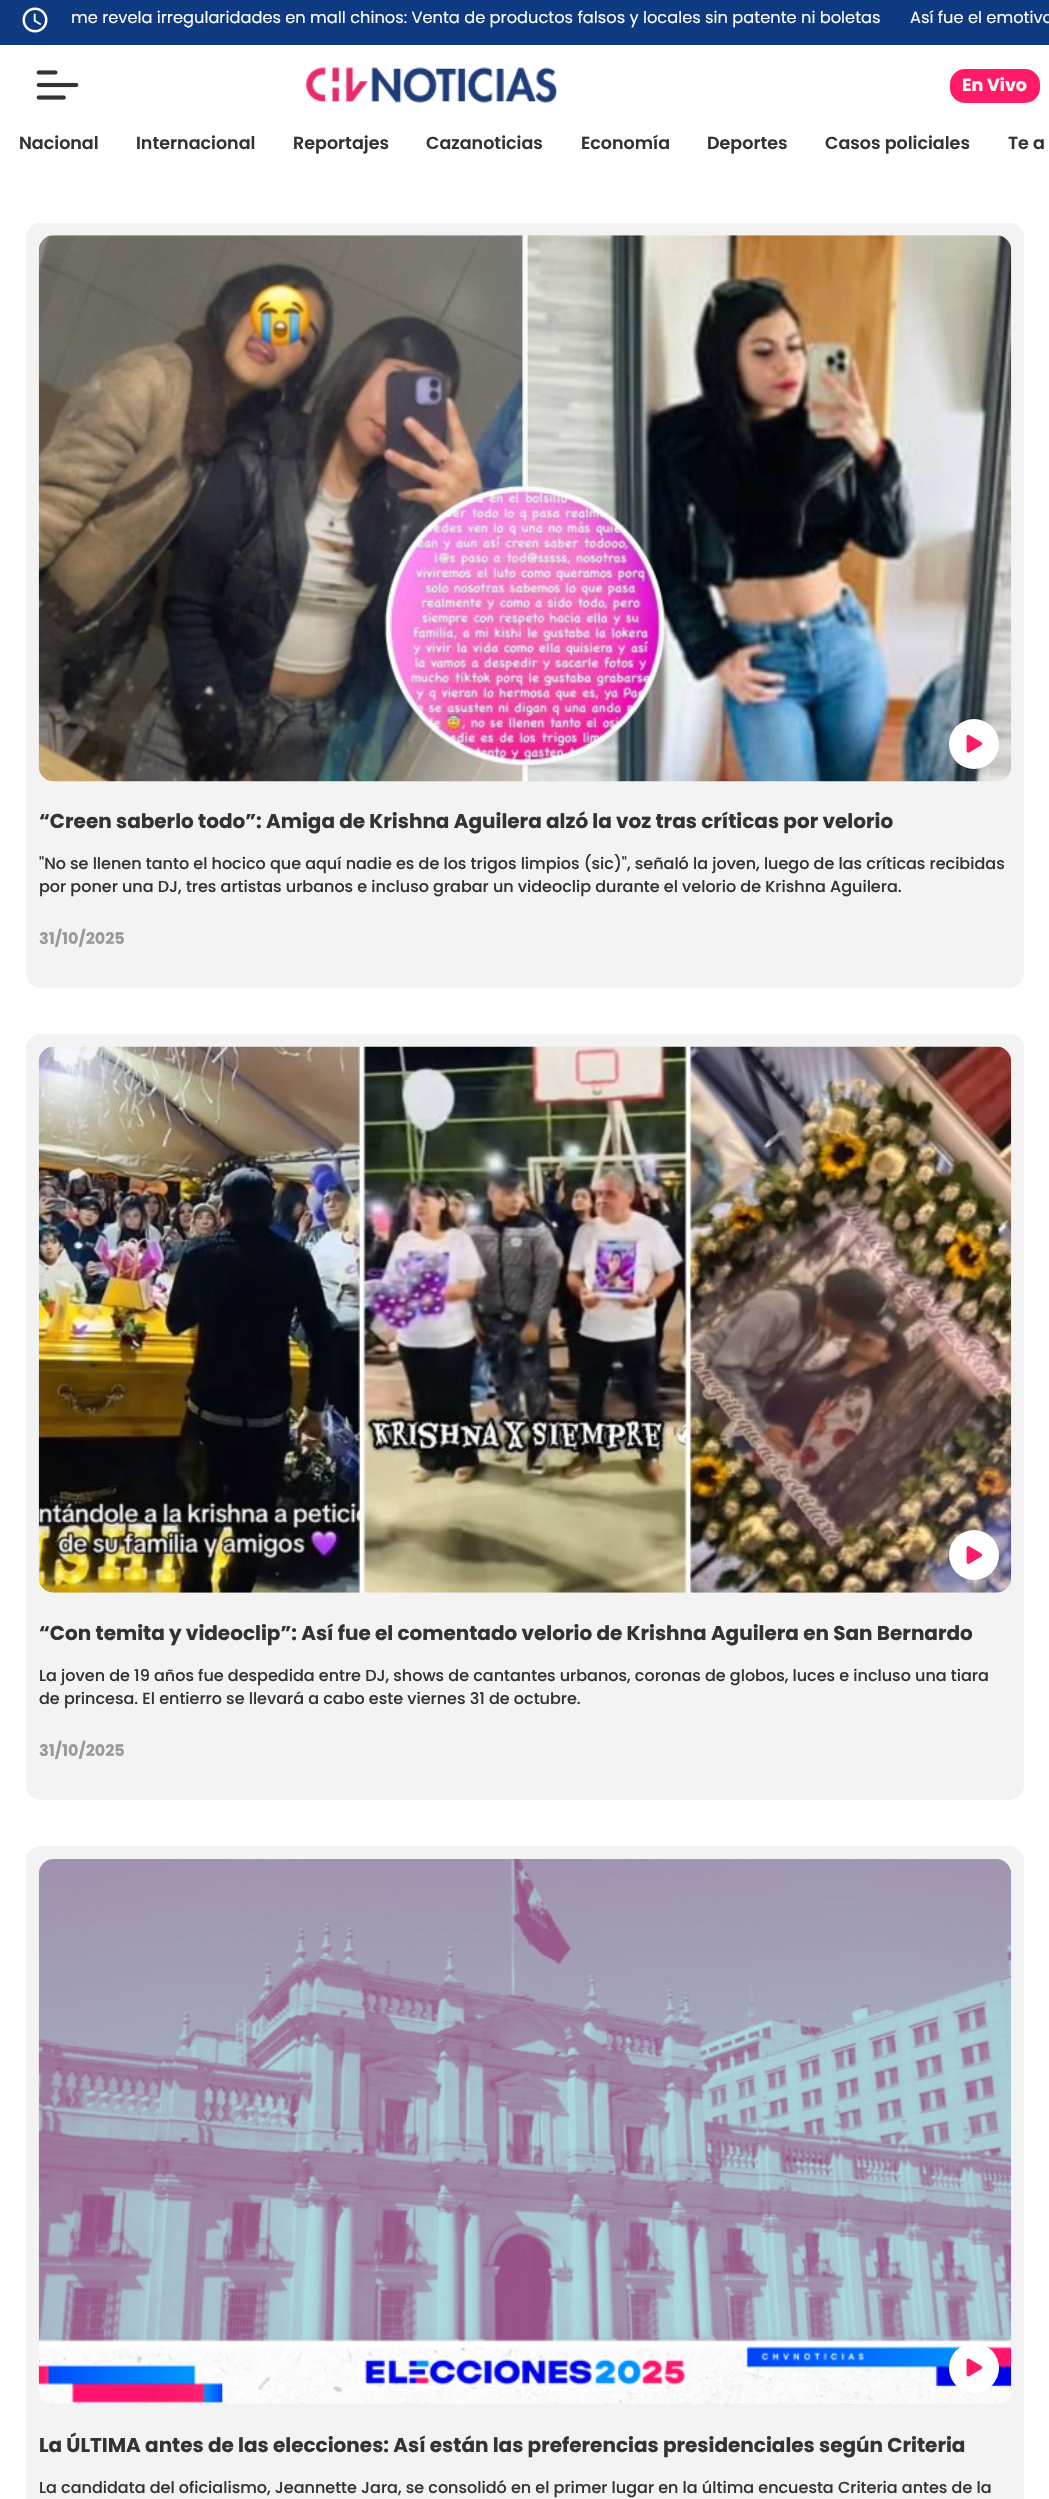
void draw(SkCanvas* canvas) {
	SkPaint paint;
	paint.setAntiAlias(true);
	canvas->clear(0xffffffff);
	paint.setColor(0xff0e3a81);
	canvas->drawRect(SkRect::MakeXYWH(0, 0, 1049, 45), paint);
	canvas->drawImageRect(SkImages::DeferredFromEncodedData(SkData::MakeFromFileName("img1.png")), SkRect::MakeXYWH(22, 7, 26, 26), SkSamplingOptions());
	SkFont f1(fontMgr->matchFamilyStyle("Poppins", SkFontStyle::Normal()), 16.25);
	f1.setSubpixel(true);
	paint.setColor(0xffffffff);
	canvas->drawString("me revela irregularidades en mall chinos: Venta de productos falsos y locales sin patente ni boletas", 71, 23, f1, paint);
	canvas->drawString("Así fue el emotivo", 910, 23, f1, paint);
	canvas->drawImageRect(SkImages::DeferredFromEncodedData(SkData::MakeFromFileName("img2.png")), SkRect::MakeXYWH(36, 70, 43, 30), SkSamplingOptions());
	canvas->drawImageRect(SkImages::DeferredFromEncodedData(SkData::MakeFromFileName("img3.png")), SkRect::MakeXYWH(306, 67, 251, 36), SkSamplingOptions());
	paint.setColor(0xffff1a6a);
	canvas->drawRoundRect(SkRect::MakeXYWH(950, 69, 90, 34), 15, 15, paint);
	SkFont f2(fontMgr->matchFamilyStyle("Poppins", SkFontStyle::Bold()), 17.5);
	f2.setSubpixel(true);
	paint.setColor(0xfff4f7e9);
	canvas->drawString("En Vivo", 962, 91, f2, paint);
	SkFont f3(fontMgr->matchFamilyStyle("Poppins", SkFontStyle(600, SkFontStyle::kNormal_Width, SkFontStyle::kUpright_Slant)), 17.5);
	f3.setSubpixel(true);
	paint.setColor(0xff333333);
	canvas->drawString("Nacional", 19, 149, f3, paint);
	canvas->drawString("Internacional", 136, 149, f3, paint);
	canvas->drawString("Reportajes", 293, 149, f3, paint);
	canvas->drawString("Cazanoticias", 426, 149, f3, paint);
	canvas->drawString("Economía", 581, 149, f3, paint);
	canvas->drawString("Deportes", 707, 149, f3, paint);
	canvas->drawString("Casos policiales", 825, 149, f3, paint);
	canvas->drawString("Te a", 1008, 149, f3, paint);
	paint.setColor(0xfff3f3f3);
	canvas->drawRoundRect(SkRect::MakeXYWH(26, 223, 998, 765), 15, 15, paint);
	canvas->drawRoundRect(SkRect::MakeXYWH(26, 223, 998, 752), 15, 15, paint);
	canvas->drawImageRect(SkImages::DeferredFromEncodedData(SkData::MakeFromFileName("img4.png")), SkRect::MakeXYWH(38, 235, 974, 547), SkSamplingOptions());
	paint.setColor(0xffffffff);
	canvas->drawCircle(974, 744, 25, paint);
	canvas->drawImageRect(SkImages::DeferredFromEncodedData(SkData::MakeFromFileName("img5.png")), SkRect::MakeXYWH(966, 734, 17, 19), SkSamplingOptions());
	SkFont f4(fontMgr->matchFamilyStyle("Poppins", SkFontStyle::Bold()), 20);
	f4.setSubpixel(true);
	paint.setColor(0xff333333);
	canvas->drawString("“Creen saberlo todo”: Amiga de Krishna Aguilera alzó la voz tras críticas por velorio", 39, 828, f4, paint);
	SkFont f5(fontMgr->matchFamilyStyle("Poppins", SkFontStyle(500, SkFontStyle::kNormal_Width, SkFontStyle::kUpright_Slant)), 16);
	f5.setSubpixel(true);
	canvas->drawString("\"No se llenen tanto el hocico que aquí nadie es de los trigos limpios (sic)\", señaló la joven, luego de las críticas recibidas", 39, 869, f5, paint);
	canvas->drawString("por poner una DJ, tres artistas urbanos e incluso grabar un videoclip durante el velorio de Krishna Aguilera.", 39, 892, f5, paint);
	SkFont f6(fontMgr->matchFamilyStyle("Poppins", SkFontStyle::Bold()), 16);
	f6.setSubpixel(true);
	paint.setColor(0xff999999);
	canvas->drawString("31/10/2025", 39, 944, f6, paint);
	paint.setColor(0xfff3f3f3);
	canvas->drawRoundRect(SkRect::MakeXYWH(26, 1034, 998, 766), 15, 15, paint);
	canvas->drawRoundRect(SkRect::MakeXYWH(26, 1034, 998, 754), 15, 15, paint);
	canvas->drawImageRect(SkImages::DeferredFromEncodedData(SkData::MakeFromFileName("img6.png")), SkRect::MakeXYWH(38, 1046, 974, 547), SkSamplingOptions());
	paint.setColor(0xffffffff);
	canvas->drawCircle(974, 1555, 25, paint);
	canvas->drawImageRect(SkImages::DeferredFromEncodedData(SkData::MakeFromFileName("img7.png")), SkRect::MakeXYWH(966, 1546, 17, 18), SkSamplingOptions());
	paint.setColor(0xff333333);
	canvas->drawString("“Con temita y videoclip”: Así fue el comentado velorio de Krishna Aguilera en San Bernardo", 39, 1640, f4, paint);
	canvas->drawString("La joven de 19 años fue despedida entre DJ, shows de cantantes urbanos, coronas de globos, luces e incluso una tiara", 39, 1681, f5, paint);
	canvas->drawString("de princesa. El entierro se llevará a cabo este viernes 31 de octubre.", 39, 1704, f5, paint);
	paint.setColor(0xff999999);
	canvas->drawString("31/10/2025", 39, 1756, f6, paint);
	paint.setColor(0xfff3f3f3);
	canvas->drawRoundRect(SkRect::MakeXYWH(26, 1846, 998, 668), 15, 15, paint);
	canvas->drawImageRect(SkImages::DeferredFromEncodedData(SkData::MakeFromFileName("img8.png")), SkRect::MakeXYWH(38, 1859, 974, 546), SkSamplingOptions());
	paint.setColor(0xffffffff);
	canvas->drawCircle(974, 2368, 25, paint);
	canvas->drawImageRect(SkImages::DeferredFromEncodedData(SkData::MakeFromFileName("img9.png")), SkRect::MakeXYWH(966, 2358, 17, 19), SkSamplingOptions());
	paint.setColor(0xff333333);
	canvas->drawString("La ÚLTIMA antes de las elecciones: Así están las preferencias presidenciales según Criteria", 39, 2452, f4, paint);
	canvas->drawString("La candidata del oficialismo, Jeannette Jara, se consolidó en el primer lugar en la última encuesta Criteria antes de la", 39, 2493, f5, paint);
}
